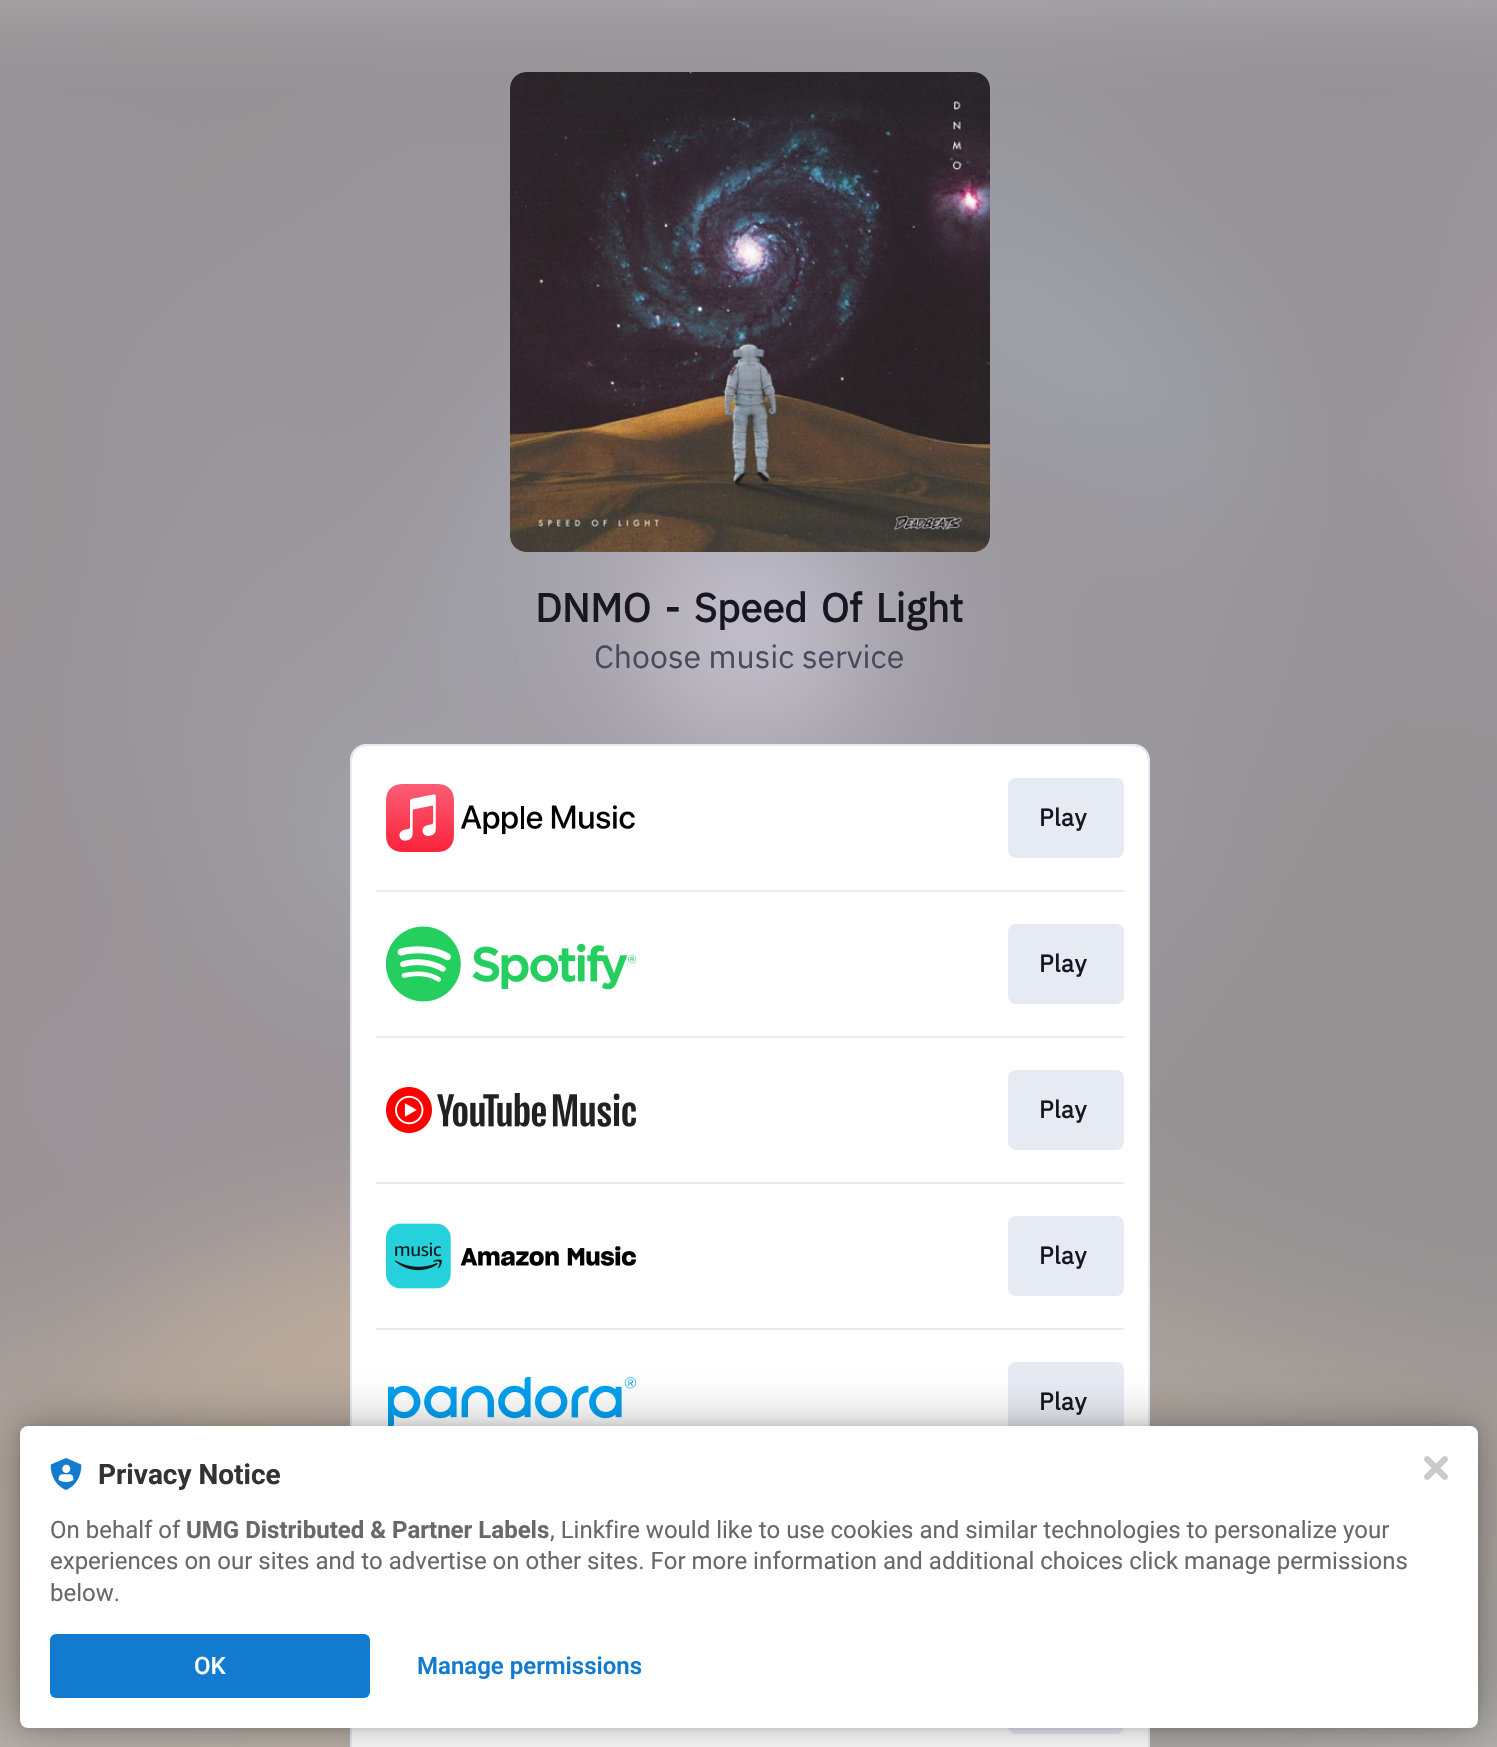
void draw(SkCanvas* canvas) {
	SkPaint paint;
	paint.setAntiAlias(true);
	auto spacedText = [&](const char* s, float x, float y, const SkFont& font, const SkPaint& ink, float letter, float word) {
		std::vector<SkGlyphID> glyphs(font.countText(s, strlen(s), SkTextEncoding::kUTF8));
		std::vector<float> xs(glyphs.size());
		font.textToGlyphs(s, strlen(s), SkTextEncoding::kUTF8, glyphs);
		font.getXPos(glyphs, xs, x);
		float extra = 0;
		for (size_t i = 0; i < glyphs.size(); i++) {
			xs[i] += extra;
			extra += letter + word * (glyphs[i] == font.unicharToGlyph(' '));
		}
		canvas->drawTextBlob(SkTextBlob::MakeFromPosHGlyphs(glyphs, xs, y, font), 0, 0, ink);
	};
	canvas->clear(0xffffffff);
	canvas->drawImageRect(SkImages::DeferredFromEncodedData(SkData::MakeFromFileName("img1.png")), SkRect::MakeXYWH(0, 0, 1497, 1747), SkSamplingOptions());
	canvas->drawImageRect(SkImages::DeferredFromEncodedData(SkData::MakeFromFileName("img2.png")), SkRect::MakeXYWH(510, 72, 480, 480), SkSamplingOptions());
	SkFont f1(fontMgr->matchFamilyStyle("IBM Plex Sans", SkFontStyle::Normal()), 24);
	f1.setSubpixel(true);
	paint.setColor(0xff2e272d);
	canvas->drawString("…", 647, 160, f1, paint);
	SkFont f2(fontMgr->matchFamilyStyle("IBM Plex Sans", SkFontStyle::Bold()), 40);
	f2.setSubpixel(true);
	paint.setColor(0xff181721);
	spacedText("DNMO - Speed Of Light", 535, 622, f2, paint, 0, 4);
	SkFont f3(fontMgr->matchFamilyStyle("IBM Plex Sans", SkFontStyle::Normal()), 32);
	f3.setSubpixel(true);
	paint.setColor(0xff454b5f);
	canvas->drawString("Choose music service", 594, 668, f3, paint);
	paint.setStroke(true);
	paint.setStrokeWidth(2);
	paint.setColor(0xffe6eaf2);
	canvas->drawRoundRect(SkRect::MakeXYWH(351, 745, 798, 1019), 15, 15, paint);
	paint.setStroke(false);
	paint.setColor(0xffffffff);
	canvas->drawRoundRect(SkRect::MakeXYWH(352, 746, 796, 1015), 14, 14, paint);
	canvas->drawImageRect(SkImages::DeferredFromEncodedData(SkData::MakeFromFileName("img3.png")), SkRect::MakeXYWH(386, 784, 249, 68), SkSamplingOptions());
	paint.setColor(0xffe6eaf2);
	canvas->drawRoundRect(SkRect::MakeXYWH(1008, 778, 116, 80), 8, 8, paint);
	SkFont f4(fontMgr->matchFamilyStyle("IBM Plex Sans", SkFontStyle::Bold()), 24);
	f4.setSubpixel(true);
	paint.setColor(0xff181721);
	spacedText("Play", 1039, 826, f4, paint, 0.5, 0);
	paint.setColor(0xffe6eaf2);
	canvas->drawRect(SkRect::MakeXYWH(376, 890, 748, 2), paint);
	canvas->drawImageRect(SkImages::DeferredFromEncodedData(SkData::MakeFromFileName("img4.png")), SkRect::MakeXYWH(386, 926, 250, 76), SkSamplingOptions());
	canvas->drawRoundRect(SkRect::MakeXYWH(1008, 924, 116, 80), 8, 8, paint);
	paint.setColor(0xff181721);
	spacedText("Play", 1039, 972, f4, paint, 0.5, 0);
	paint.setColor(0xffe6eaf2);
	canvas->drawRect(SkRect::MakeXYWH(376, 1036, 748, 2), paint);
	canvas->drawImageRect(SkImages::DeferredFromEncodedData(SkData::MakeFromFileName("img5.png")), SkRect::MakeXYWH(386, 1087, 250, 46), SkSamplingOptions());
	canvas->drawRoundRect(SkRect::MakeXYWH(1008, 1070, 116, 80), 8, 8, paint);
	paint.setColor(0xff181721);
	spacedText("Play", 1039, 1118, f4, paint, 0.5, 0);
	paint.setColor(0xffe6eaf2);
	canvas->drawRect(SkRect::MakeXYWH(376, 1182, 748, 2), paint);
	canvas->drawImageRect(SkImages::DeferredFromEncodedData(SkData::MakeFromFileName("img6.png")), SkRect::MakeXYWH(386, 1223, 250, 66), SkSamplingOptions());
	canvas->drawRoundRect(SkRect::MakeXYWH(1008, 1216, 116, 80), 8, 8, paint);
	paint.setColor(0xff181721);
	spacedText("Play", 1039, 1264, f4, paint, 0.5, 0);
	paint.setColor(0xffe6eaf2);
	canvas->drawRect(SkRect::MakeXYWH(376, 1328, 748, 2), paint);
	canvas->drawImageRect(SkImages::DeferredFromEncodedData(SkData::MakeFromFileName("img7.png")), SkRect::MakeXYWH(388, 1377, 248, 49), SkSamplingOptions());
	canvas->drawRoundRect(SkRect::MakeXYWH(1008, 1362, 116, 80), 8, 8, paint);
	paint.setColor(0xff181721);
	spacedText("Play", 1039, 1410, f4, paint, 0.5, 0);
	paint.setColor(0xffe6eaf2);
	canvas->drawRoundRect(SkRect::MakeXYWH(1008, 1654, 116, 80), 8, 8, paint);
	paint.setColor(0x1f000000);
	paint.setMaskFilter(SkMaskFilter::MakeBlur(kNormal_SkBlurStyle, 4));
	canvas->drawRoundRect(SkRect::MakeXYWH(20, 1426, 1458, 302), 8, 8, paint);
	paint.setMaskFilter(nullptr);
	paint.setColor(0x4d000000);
	paint.setMaskFilter(SkMaskFilter::MakeBlur(kNormal_SkBlurStyle, 24));
	canvas->drawRoundRect(SkRect::MakeXYWH(20, 1426, 1458, 302), 8, 8, paint);
	paint.setMaskFilter(nullptr);
	paint.setColor(0xffffffff);
	canvas->drawRoundRect(SkRect::MakeXYWH(20, 1426, 1458, 302), 8, 8, paint);
	canvas->drawImageRect(SkImages::DeferredFromEncodedData(SkData::MakeFromFileName("img8.png")), SkRect::MakeXYWH(50, 1458, 32, 32), SkSamplingOptions());
	SkFont f5(fontMgr->matchFamilyStyle("Roboto", SkFontStyle::Bold()), 28);
	f5.setSubpixel(true);
	paint.setColor(0xff323232);
	canvas->drawString("Privacy Notice", 98, 1484, f5, paint);
	SkFont f6(fontMgr->matchFamilyStyle("Roboto", SkFontStyle::Normal()), 24);
	f6.setSubpixel(true);
	paint.setColor(0xff686868);
	canvas->drawString("On behalf of", 50, 1538, f6, paint);
	SkFont f7(fontMgr->matchFamilyStyle("Roboto", SkFontStyle::Bold()), 24);
	f7.setSubpixel(true);
	canvas->drawString("UMG Distributed & Partner Labels", 186, 1538, f7, paint);
	canvas->drawString(", Linkfire would like to use cookies and similar technologies to personalize your", 550, 1538, f6, paint);
	canvas->drawString("experiences on our sites and to advertise on other sites. For more information and additional choices click manage permissions", 50, 1569, f6, paint);
	canvas->drawString("below.", 50, 1601, f6, paint);
	paint.setColor(0xff137bcf);
	canvas->drawRoundRect(SkRect::MakeXYWH(50, 1634, 320, 64), 6, 6, paint);
	SkFont f8(fontMgr->matchFamilyStyle("Roboto", SkFontStyle(500, SkFontStyle::kNormal_Width, SkFontStyle::kUpright_Slant)), 24);
	f8.setSubpixel(true);
	paint.setColor(0xffffffff);
	canvas->drawString("OK", 194, 1674, f8, paint);
	SkFont f9(fontMgr->matchFamilyStyle("Roboto", SkFontStyle(600, SkFontStyle::kNormal_Width, SkFontStyle::kUpright_Slant)), 24);
	f9.setSubpixel(true);
	paint.setColor(0xff137bcf);
	canvas->drawString("Manage permissions", 417, 1674, f9, paint);
	canvas->drawImageRect(SkImages::DeferredFromEncodedData(SkData::MakeFromFileName("img9.png")), SkRect::MakeXYWH(1424, 1456, 24, 24), SkSamplingOptions());
}
